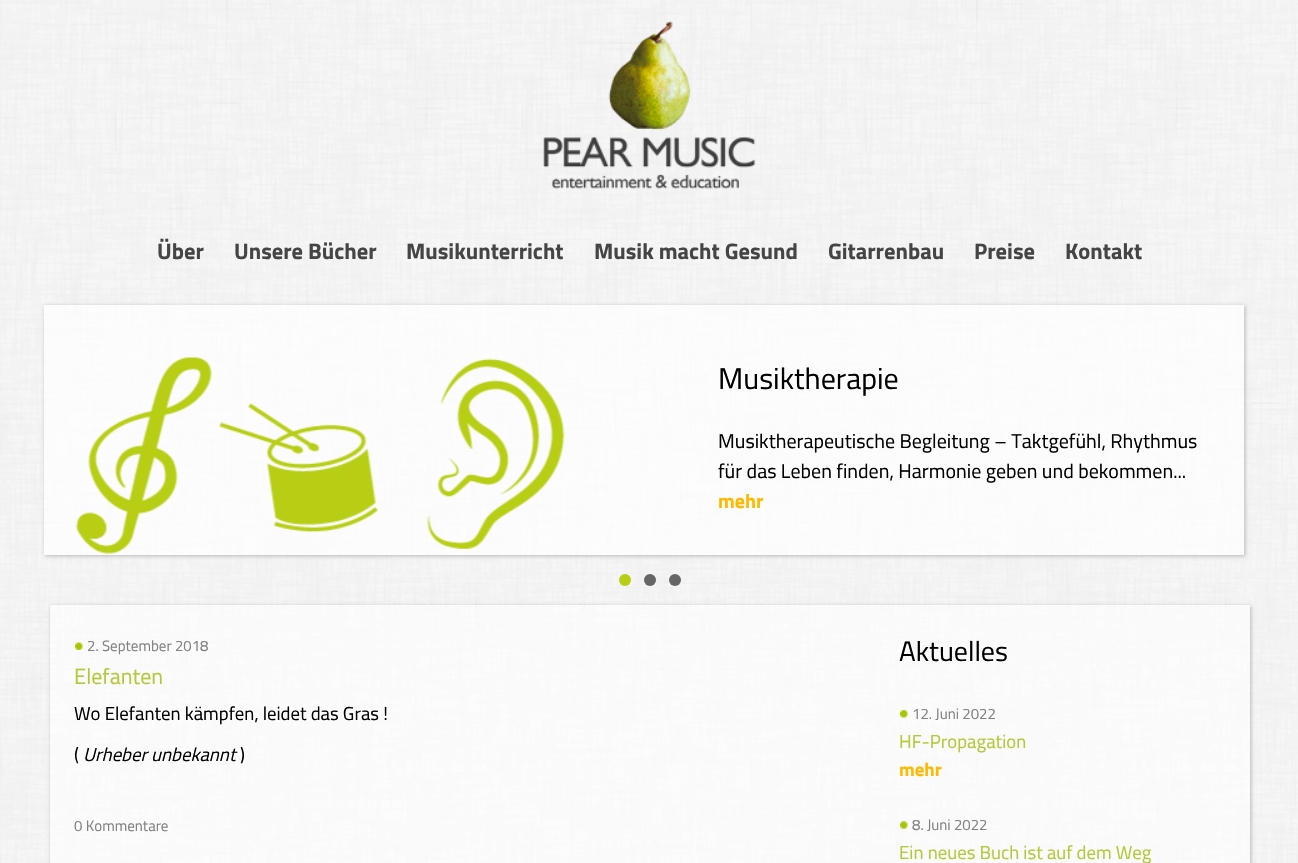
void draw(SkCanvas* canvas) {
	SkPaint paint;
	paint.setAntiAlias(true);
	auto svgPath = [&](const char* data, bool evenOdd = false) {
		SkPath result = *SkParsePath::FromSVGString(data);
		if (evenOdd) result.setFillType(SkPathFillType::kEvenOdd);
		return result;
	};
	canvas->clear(0xffffffff);
	canvas->drawImageRect(SkImages::DeferredFromEncodedData(SkData::MakeFromFileName("img1.png")), SkRect::MakeXYWH(0, 0, 1298, 863), SkSamplingOptions());
	canvas->drawImageRect(SkImages::DeferredFromEncodedData(SkData::MakeFromFileName("img2.png")), SkRect::MakeXYWH(543, 21, 213, 168), SkSamplingOptions());
	SkFont f1(fontMgr->matchFamilyStyle("Titillium Web", SkFontStyle::Bold()), 22.5);
	f1.setSubpixel(true);
	paint.setColor(0xff454545);
	canvas->drawString("Über", 157, 259, f1, paint);
	canvas->drawString("Unsere Bücher", 234, 259, f1, paint);
	canvas->drawString("Musikunterricht", 406, 259, f1, paint);
	canvas->drawString("Musik macht Gesund", 594, 259, f1, paint);
	canvas->drawString("Gitarrenbau", 828, 259, f1, paint);
	canvas->drawString("Preise", 974, 259, f1, paint);
	canvas->drawString("Kontakt", 1065, 259, f1, paint);
	canvas->save();
	canvas->clipPath(svgPath("M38 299H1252V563H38ZM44 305H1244V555H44Z", true), true);
	paint.setColor(0xffb7b7b7);
	paint.setMaskFilter(SkMaskFilter::MakeBlur(kNormal_SkBlurStyle, 2));
	canvas->drawRect(SkRect::MakeXYWH(45, 306, 1200, 250), paint);
	paint.setMaskFilter(nullptr);
	canvas->restore();
	paint.setColor(0xb3ffffff);
	canvas->drawRect(SkRect::MakeXYWH(44, 305, 1200, 250), paint);
	canvas->drawImageRect(SkImages::DeferredFromEncodedData(SkData::MakeFromFileName("img3.png")), SkRect::MakeXYWH(75, 357, 490, 197), SkSamplingOptions());
	SkFont f2(fontMgr->matchFamilyStyle("Titillium Web", SkFontStyle::Normal()), 30);
	f2.setSubpixel(true);
	paint.setColor(0xff000000);
	canvas->drawString("Musiktherapie", 718, 389, f2, paint);
	SkFont f3(fontMgr->matchFamilyStyle("Titillium Web", SkFontStyle::Normal()), 20);
	f3.setSubpixel(true);
	canvas->drawString("Musiktherapeutische Begleitung – Taktgefühl, Rhythmus", 718, 448, f3, paint);
	canvas->drawString("für das Leben finden, Harmonie geben und bekommen...", 718, 478, f3, paint);
	SkFont f4(fontMgr->matchFamilyStyle("Titillium Web", SkFontStyle::Bold()), 20);
	f4.setSubpixel(true);
	paint.setColor(0xffffba00);
	canvas->drawString("mehr", 718, 508, f4, paint);
	paint.setColor(0xffb8ce14);
	canvas->drawCircle(625, 580, 6, paint);
	paint.setColor(0xff666666);
	canvas->drawCircle(650, 580, 6, paint);
	canvas->drawCircle(675, 580, 6, paint);
	canvas->save();
	canvas->clipPath(svgPath("M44 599H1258V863H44ZM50 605H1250V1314H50Z", true), true);
	paint.setColor(0xffb7b7b7);
	paint.setMaskFilter(SkMaskFilter::MakeBlur(kNormal_SkBlurStyle, 2));
	canvas->drawRect(SkRect::MakeXYWH(51, 606, 1200, 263), paint);
	paint.setMaskFilter(nullptr);
	canvas->restore();
	paint.setColor(0x99ffffff);
	canvas->drawRect(SkRect::MakeXYWH(50, 605, 1200, 258), paint);
	canvas->drawImageRect(SkImages::DeferredFromEncodedData(SkData::MakeFromFileName("img4.png")), SkRect::MakeXYWH(75, 642, 8, 8), SkSamplingOptions());
	SkFont f5(fontMgr->matchFamilyStyle("Titillium Web", SkFontStyle::Normal()), 15);
	f5.setSubpixel(true);
	paint.setColor(0xff818181);
	canvas->drawString("2. September 2018", 87, 651, f5, paint);
	SkFont f6(fontMgr->matchFamilyStyle("Titillium Web", SkFontStyle::Normal()), 22);
	f6.setSubpixel(true);
	paint.setColor(0xffb5c835);
	canvas->drawString("Elefanten", 74, 684, f6, paint);
	SkFont f7(fontMgr->matchFamilyStyle("Titillium Web", SkFontStyle::Normal()), 18.75);
	f7.setSubpixel(true);
	paint.setColor(0xff000000);
	canvas->drawString("Wo Elefanten kämpfen, leidet das Gras !", 74, 720, f7, paint);
	canvas->drawString("(", 74, 761, f7, paint);
	SkFont f8(fontMgr->matchFamilyStyle("Titillium Web", SkFontStyle::Italic()), 18.75);
	f8.setSubpixel(true);
	canvas->drawString("Urheber unbekannt", 83, 761, f8, paint);
	canvas->drawString(")", 240, 761, f7, paint);
	paint.setColor(0xff818181);
	canvas->drawString("0 Kommentare", 74, 831, f5, paint);
	SkFont f9(fontMgr->matchFamilyStyle("Titillium Web", SkFontStyle::Normal()), 28);
	f9.setSubpixel(true);
	paint.setColor(0xff000000);
	canvas->drawString("Aktuelles", 899, 661, f9, paint);
	canvas->drawImageRect(SkImages::DeferredFromEncodedData(SkData::MakeFromFileName("img5.png")), SkRect::MakeXYWH(900, 710, 8, 8), SkSamplingOptions());
	paint.setColor(0xff818181);
	canvas->drawString("12. Juni 2022", 912, 719, f5, paint);
	paint.setColor(0xffb5c835);
	canvas->drawString("HF-Propagation", 899, 748, f7, paint);
	SkFont f10(fontMgr->matchFamilyStyle("Titillium Web", SkFontStyle::Bold()), 18.75);
	f10.setSubpixel(true);
	paint.setColor(0xffffba00);
	canvas->drawString("mehr", 899, 776, f10, paint);
	canvas->drawImageRect(SkImages::DeferredFromEncodedData(SkData::MakeFromFileName("img6.png")), SkRect::MakeXYWH(900, 821, 8, 8), SkSamplingOptions());
	paint.setColor(0xff818181);
	canvas->drawString("8. Juni 2022", 912, 830, f5, paint);
	paint.setColor(0xffb5c835);
	canvas->drawString("Ein neues Buch ist auf dem Weg", 899, 859, f7, paint);
}
